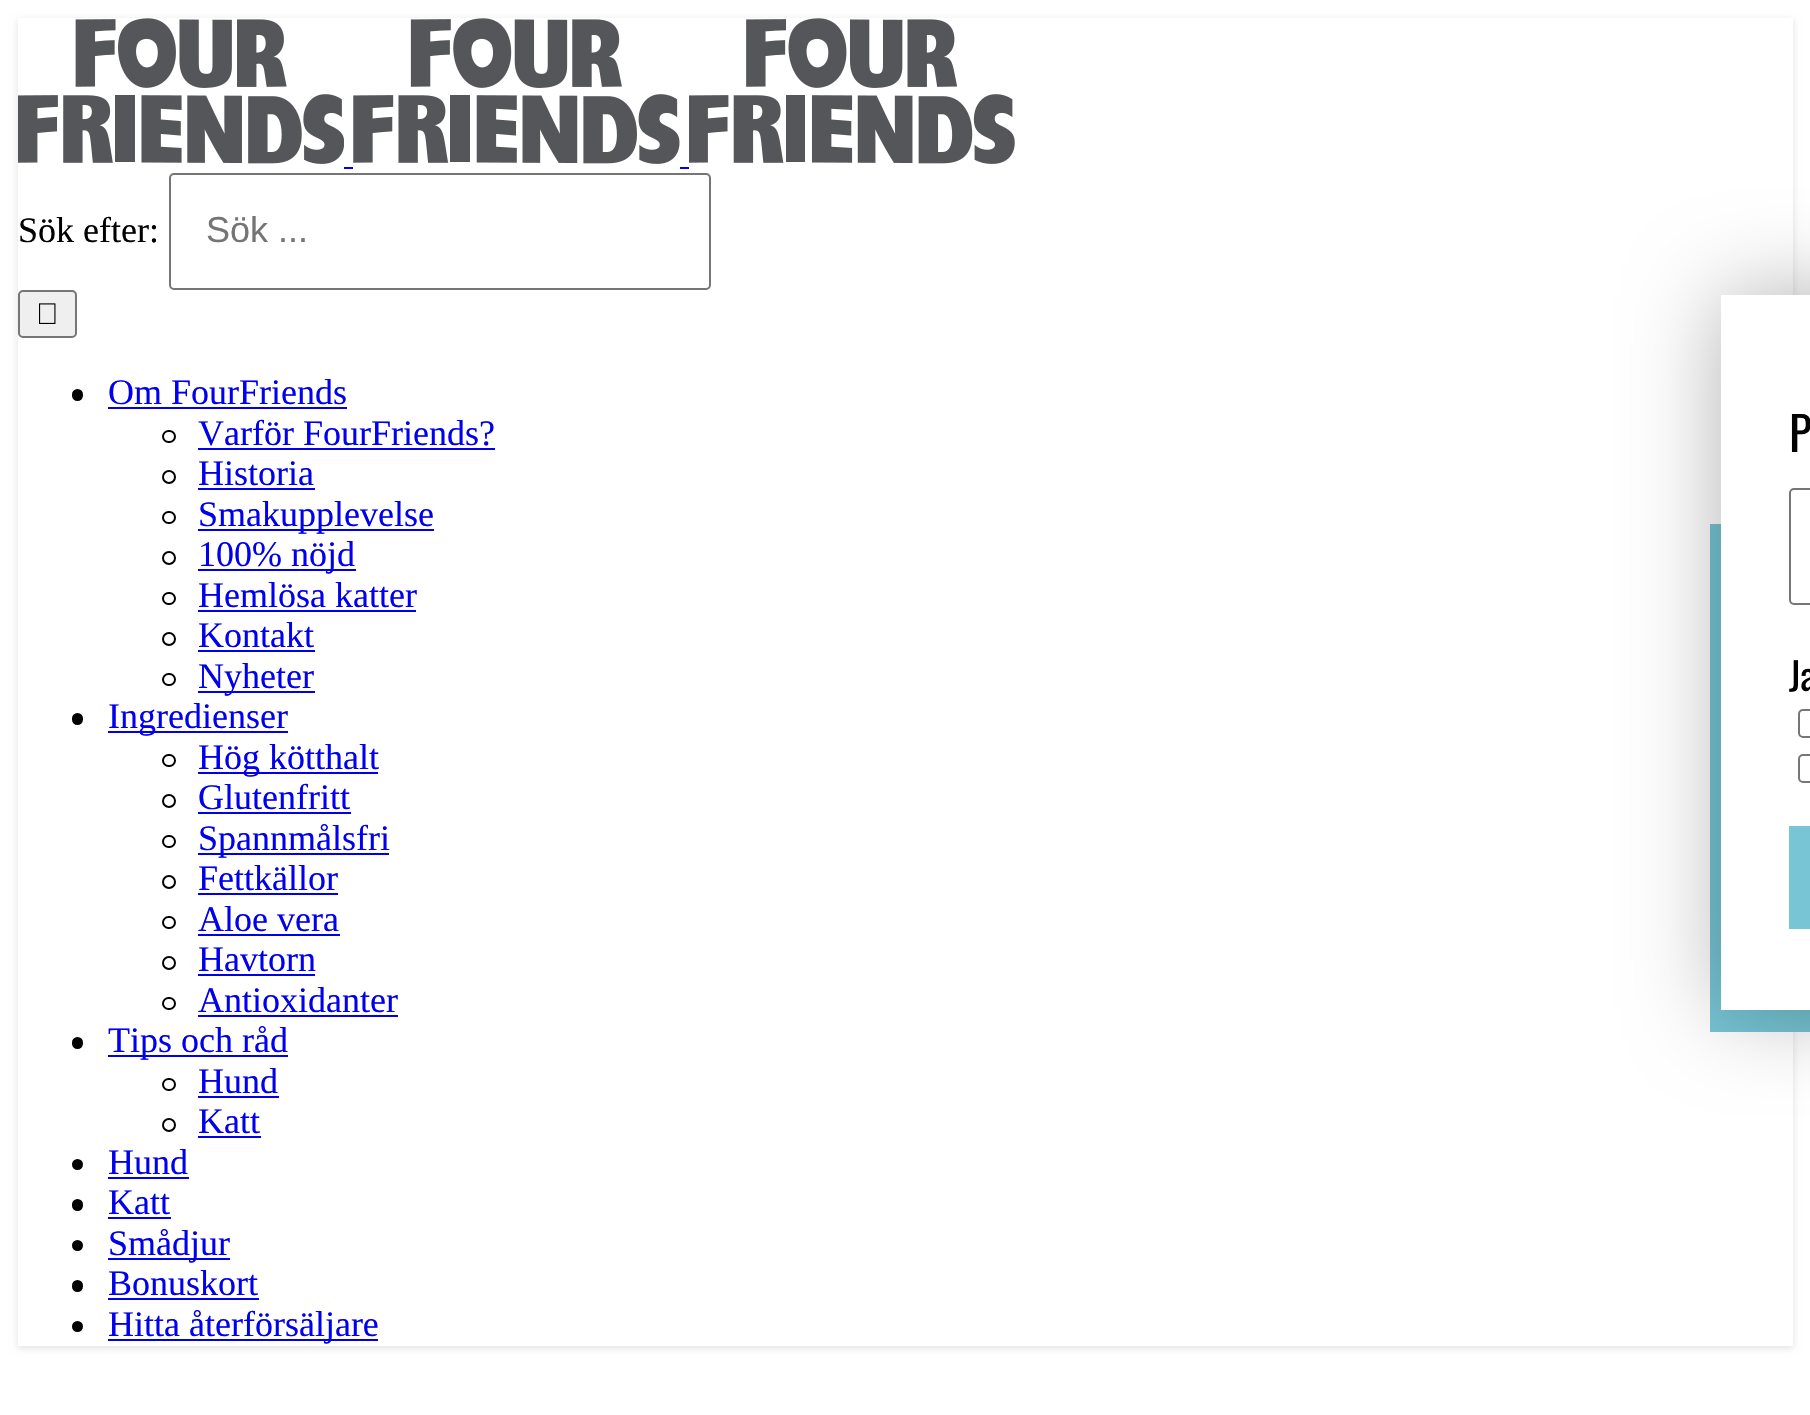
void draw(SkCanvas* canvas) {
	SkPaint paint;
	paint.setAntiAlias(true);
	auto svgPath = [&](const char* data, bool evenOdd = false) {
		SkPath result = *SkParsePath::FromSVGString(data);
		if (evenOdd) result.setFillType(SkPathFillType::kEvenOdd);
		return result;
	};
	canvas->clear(0xffffffff);
	canvas->save();
	canvas->clipPath(svgPath("M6 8H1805V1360H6ZM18 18H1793V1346H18Z", true), true);
	paint.setColor(0x1f000000);
	paint.setMaskFilter(SkMaskFilter::MakeBlur(kNormal_SkBlurStyle, 3.5));
	canvas->drawRect(SkRect::MakeXYWH(18, 20, 1775, 1328), paint);
	paint.setMaskFilter(nullptr);
	canvas->restore();
	canvas->drawImageRect(SkImages::DeferredFromEncodedData(SkData::MakeFromFileName("img1.png")), SkRect::MakeXYWH(18, 18, 326, 146), SkSamplingOptions());
	canvas->drawImageRect(SkImages::DeferredFromEncodedData(SkData::MakeFromFileName("img2.png")), SkRect::MakeXYWH(353, 18, 327, 146), SkSamplingOptions());
	canvas->drawImageRect(SkImages::DeferredFromEncodedData(SkData::MakeFromFileName("img3.png")), SkRect::MakeXYWH(689, 18, 326, 146), SkSamplingOptions());
	paint.setColor(0xff0000ee);
	canvas->drawRect(SkRect::MakeXYWH(344, 167, 9, 2), paint);
	canvas->drawRect(SkRect::MakeXYWH(680, 167, 9, 2), paint);
	SkFont f1(fontMgr->matchFamilyStyle("Liberation Serif", SkFontStyle::Normal()), 36);
	f1.setSubpixel(true);
	paint.setColor(0xff000000);
	canvas->drawString("Sök efter:", 18, 242, f1, paint);
	paint.setStroke(true);
	paint.setStrokeWidth(2);
	paint.setColor(0xff767676);
	canvas->drawRoundRect(SkRect::MakeXYWH(170, 174, 540, 115), 4, 4, paint);
	SkFont f2(fontMgr->matchFamilyStyle("Liberation Sans", SkFontStyle::Normal()), 36);
	f2.setSubpixel(true);
	paint.setStroke(false);
	paint.setColor(0xff757575);
	canvas->drawString("Sök ...", 206, 242, f2, paint);
	paint.setColor(0xffefefef);
	canvas->drawRoundRect(SkRect::MakeXYWH(19, 291, 57, 46), 4, 4, paint);
	paint.setStroke(true);
	paint.setColor(0xff767676);
	canvas->drawRoundRect(SkRect::MakeXYWH(19, 291, 57, 46), 4, 4, paint);
	canvas->drawImageRect(SkImages::DeferredFromEncodedData(SkData::MakeFromFileName("img4.png")), SkRect::MakeXYWH(39, 303, 17, 21), SkSamplingOptions());
	paint.setStroke(false);
	paint.setColor(0xff000000);
	canvas->drawRoundRect(SkRect::MakeXYWH(72, 389, 11, 12), 5.5, 5.5, paint);
	paint.setColor(0xff0000ee);
	canvas->drawString("Om FourFriends", 108, 404, f1, paint);
	canvas->drawRect(SkRect::MakeXYWH(108, 407, 239, 2), paint);
	paint.setStroke(true);
	paint.setColor(0xff000000);
	canvas->drawRoundRect(SkRect::MakeXYWH(163, 431, 12, 11), 5.5, 5.5, paint);
	paint.setStroke(false);
	paint.setColor(0xff0000ee);
	canvas->drawString("Varför FourFriends?", 198, 445, f1, paint);
	canvas->drawRect(SkRect::MakeXYWH(198, 448, 297, 2), paint);
	paint.setStroke(true);
	paint.setColor(0xff000000);
	canvas->drawCircle(169, 477, 6, paint);
	paint.setStroke(false);
	paint.setColor(0xff0000ee);
	canvas->drawString("Historia", 198, 485, f1, paint);
	canvas->drawRect(SkRect::MakeXYWH(198, 488, 117, 2), paint);
	paint.setStroke(true);
	paint.setColor(0xff000000);
	canvas->drawRoundRect(SkRect::MakeXYWH(163, 512, 12, 11), 5.5, 5.5, paint);
	paint.setStroke(false);
	paint.setColor(0xff0000ee);
	canvas->drawRect(SkRect::MakeXYWH(198, 529, 236, 2), paint);
	canvas->drawString("Smakupplevelse", 198, 526, f1, paint);
	paint.setStroke(true);
	paint.setColor(0xff000000);
	canvas->drawCircle(169, 558, 6, paint);
	paint.setStroke(false);
	paint.setColor(0xff0000ee);
	canvas->drawRect(SkRect::MakeXYWH(198, 569, 158, 2), paint);
	canvas->drawString("100% nöjd", 198, 566, f1, paint);
	paint.setStroke(true);
	paint.setColor(0xff000000);
	canvas->drawRoundRect(SkRect::MakeXYWH(163, 593, 12, 11), 5.5, 5.5, paint);
	paint.setStroke(false);
	paint.setColor(0xff0000ee);
	canvas->drawString("Hemlösa katter", 198, 607, f1, paint);
	canvas->drawRect(SkRect::MakeXYWH(198, 610, 218, 2), paint);
	paint.setStroke(true);
	paint.setColor(0xff000000);
	canvas->drawCircle(169, 639, 6, paint);
	paint.setStroke(false);
	paint.setColor(0xff0000ee);
	canvas->drawString("Kontakt", 198, 647, f1, paint);
	canvas->drawRect(SkRect::MakeXYWH(198, 650, 117, 2), paint);
	paint.setStroke(true);
	paint.setColor(0xff000000);
	canvas->drawRoundRect(SkRect::MakeXYWH(163, 674, 12, 11), 5.5, 5.5, paint);
	paint.setStroke(false);
	paint.setColor(0xff0000ee);
	canvas->drawRect(SkRect::MakeXYWH(198, 691, 117, 2), paint);
	canvas->drawString("Nyheter", 198, 688, f1, paint);
	paint.setColor(0xff000000);
	canvas->drawRoundRect(SkRect::MakeXYWH(72, 713, 11, 12), 5.5, 5.5, paint);
	paint.setColor(0xff0000ee);
	canvas->drawRect(SkRect::MakeXYWH(108, 731, 180, 2), paint);
	canvas->drawString("Ingredienser", 108, 728, f1, paint);
	paint.setStroke(true);
	paint.setColor(0xff000000);
	canvas->drawRoundRect(SkRect::MakeXYWH(163, 755, 12, 11), 5.5, 5.5, paint);
	paint.setStroke(false);
	paint.setColor(0xff0000ee);
	canvas->drawRect(SkRect::MakeXYWH(198, 772, 180, 2), paint);
	canvas->drawString("Hög kötthalt", 198, 769, f1, paint);
	paint.setStroke(true);
	paint.setColor(0xff000000);
	canvas->drawCircle(169, 801, 6, paint);
	paint.setStroke(false);
	paint.setColor(0xff0000ee);
	canvas->drawString("Glutenfritt", 198, 809, f1, paint);
	canvas->drawRect(SkRect::MakeXYWH(198, 812, 153, 2), paint);
	paint.setStroke(true);
	paint.setColor(0xff000000);
	canvas->drawRoundRect(SkRect::MakeXYWH(163, 836, 12, 11), 5.5, 5.5, paint);
	paint.setStroke(false);
	paint.setColor(0xff0000ee);
	canvas->drawRect(SkRect::MakeXYWH(198, 853, 191, 2), paint);
	canvas->drawString("Spannmålsfri", 198, 850, f1, paint);
	paint.setStroke(true);
	paint.setColor(0xff000000);
	canvas->drawCircle(169, 882, 6, paint);
	paint.setStroke(false);
	paint.setColor(0xff0000ee);
	canvas->drawString("Fettkällor", 198, 890, f1, paint);
	canvas->drawRect(SkRect::MakeXYWH(198, 893, 140, 2), paint);
	paint.setStroke(true);
	paint.setColor(0xff000000);
	canvas->drawRoundRect(SkRect::MakeXYWH(163, 917, 12, 11), 5.5, 5.5, paint);
	paint.setStroke(false);
	paint.setColor(0xff0000ee);
	canvas->drawString("Aloe vera", 198, 931, f1, paint);
	canvas->drawRect(SkRect::MakeXYWH(198, 934, 142, 2), paint);
	paint.setStroke(true);
	paint.setColor(0xff000000);
	canvas->drawCircle(169, 963, 6, paint);
	paint.setStroke(false);
	paint.setColor(0xff0000ee);
	canvas->drawString("Havtorn", 198, 971, f1, paint);
	canvas->drawRect(SkRect::MakeXYWH(198, 974, 117, 2), paint);
	paint.setStroke(true);
	paint.setColor(0xff000000);
	canvas->drawRoundRect(SkRect::MakeXYWH(163, 998, 12, 11), 5.5, 5.5, paint);
	paint.setStroke(false);
	paint.setColor(0xff0000ee);
	canvas->drawString("Antioxidanter", 198, 1012, f1, paint);
	canvas->drawRect(SkRect::MakeXYWH(198, 1015, 200, 2), paint);
	paint.setColor(0xff000000);
	canvas->drawRoundRect(SkRect::MakeXYWH(72, 1037, 11, 12), 5.5, 5.5, paint);
	paint.setColor(0xff0000ee);
	canvas->drawRect(SkRect::MakeXYWH(108, 1055, 180, 2), paint);
	canvas->drawString("Tips och råd", 108, 1052, f1, paint);
	paint.setStroke(true);
	paint.setColor(0xff000000);
	canvas->drawRoundRect(SkRect::MakeXYWH(163, 1079, 12, 11), 5.5, 5.5, paint);
	paint.setStroke(false);
	paint.setColor(0xff0000ee);
	canvas->drawString("Hund", 198, 1093, f1, paint);
	canvas->drawRect(SkRect::MakeXYWH(198, 1096, 81, 2), paint);
	paint.setStroke(true);
	paint.setColor(0xff000000);
	canvas->drawCircle(169, 1125, 6, paint);
	paint.setStroke(false);
	paint.setColor(0xff0000ee);
	canvas->drawString("Katt", 198, 1133, f1, paint);
	canvas->drawRect(SkRect::MakeXYWH(198, 1136, 63, 2), paint);
	paint.setColor(0xff000000);
	canvas->drawCircle(77.5, 1164.5, 5.5, paint);
	paint.setColor(0xff0000ee);
	canvas->drawString("Hund", 108, 1174, f1, paint);
	canvas->drawRect(SkRect::MakeXYWH(108, 1177, 81, 2), paint);
	paint.setColor(0xff000000);
	canvas->drawRoundRect(SkRect::MakeXYWH(72, 1199, 11, 12), 5.5, 5.5, paint);
	paint.setColor(0xff0000ee);
	canvas->drawString("Katt", 108, 1214, f1, paint);
	canvas->drawRect(SkRect::MakeXYWH(108, 1217, 63, 2), paint);
	paint.setColor(0xff000000);
	canvas->drawCircle(77.5, 1245.5, 5.5, paint);
	paint.setColor(0xff0000ee);
	canvas->drawRect(SkRect::MakeXYWH(108, 1258, 122, 2), paint);
	canvas->drawString("Smådjur", 108, 1255, f1, paint);
	paint.setColor(0xff000000);
	canvas->drawRoundRect(SkRect::MakeXYWH(72, 1280, 11, 12), 5.5, 5.5, paint);
	paint.setColor(0xff0000ee);
	canvas->drawString("Bonuskort", 108, 1295, f1, paint);
	canvas->drawRect(SkRect::MakeXYWH(108, 1298, 151, 2), paint);
	paint.setColor(0xff000000);
	canvas->drawCircle(77.5, 1326.5, 5.5, paint);
	paint.setColor(0xff0000ee);
	canvas->drawRect(SkRect::MakeXYWH(108, 1339, 270, 2), paint);
	canvas->drawString("Hitta återförsäljare", 108, 1336, f1, paint);
	paint.setColor(0xff77c5d5);
	canvas->drawRect(SkRect::MakeXYWH(1710, 524, 100, 508), paint);
	paint.setColor(0x4d000000);
	paint.setMaskFilter(SkMaskFilter::MakeBlur(kNormal_SkBlurStyle, 45));
	canvas->drawRect(SkRect::MakeXYWH(1721, 295, 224, 715), paint);
	paint.setMaskFilter(nullptr);
	paint.setColor(0xffffffff);
	canvas->drawRect(SkRect::MakeXYWH(1721, 295, 89, 715), paint);
	SkFont f3(fontMgr->matchFamilyStyle("Oswald", SkFontStyle::Normal()), 47);
	f3.setSubpixel(true);
	paint.setColor(0xff000000);
	canvas->drawString("P", 1789, 452, f3, paint);
	paint.setStroke(true);
	paint.setColor(0xff767676);
	canvas->drawRoundRect(SkRect::MakeXYWH(1790, 489, 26, 115), 4, 4, paint);
	SkFont f4(fontMgr->matchFamilyStyle("Oswald", SkFontStyle::Normal()), 38);
	f4.setSubpixel(true);
	paint.setStroke(false);
	paint.setColor(0xff000000);
	canvas->drawString("Ja", 1789, 691, f4, paint);
	paint.setStroke(true);
	paint.setColor(0xff767676);
	canvas->drawRoundRect(SkRect::MakeXYWH(1799, 710, 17, 27), 4, 4, paint);
	canvas->drawRoundRect(SkRect::MakeXYWH(1799, 755, 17, 27), 4, 4, paint);
	paint.setStroke(false);
	paint.setColor(0xff77c5d5);
	canvas->drawRect(SkRect::MakeXYWH(1789, 826, 21, 103), paint);
}
